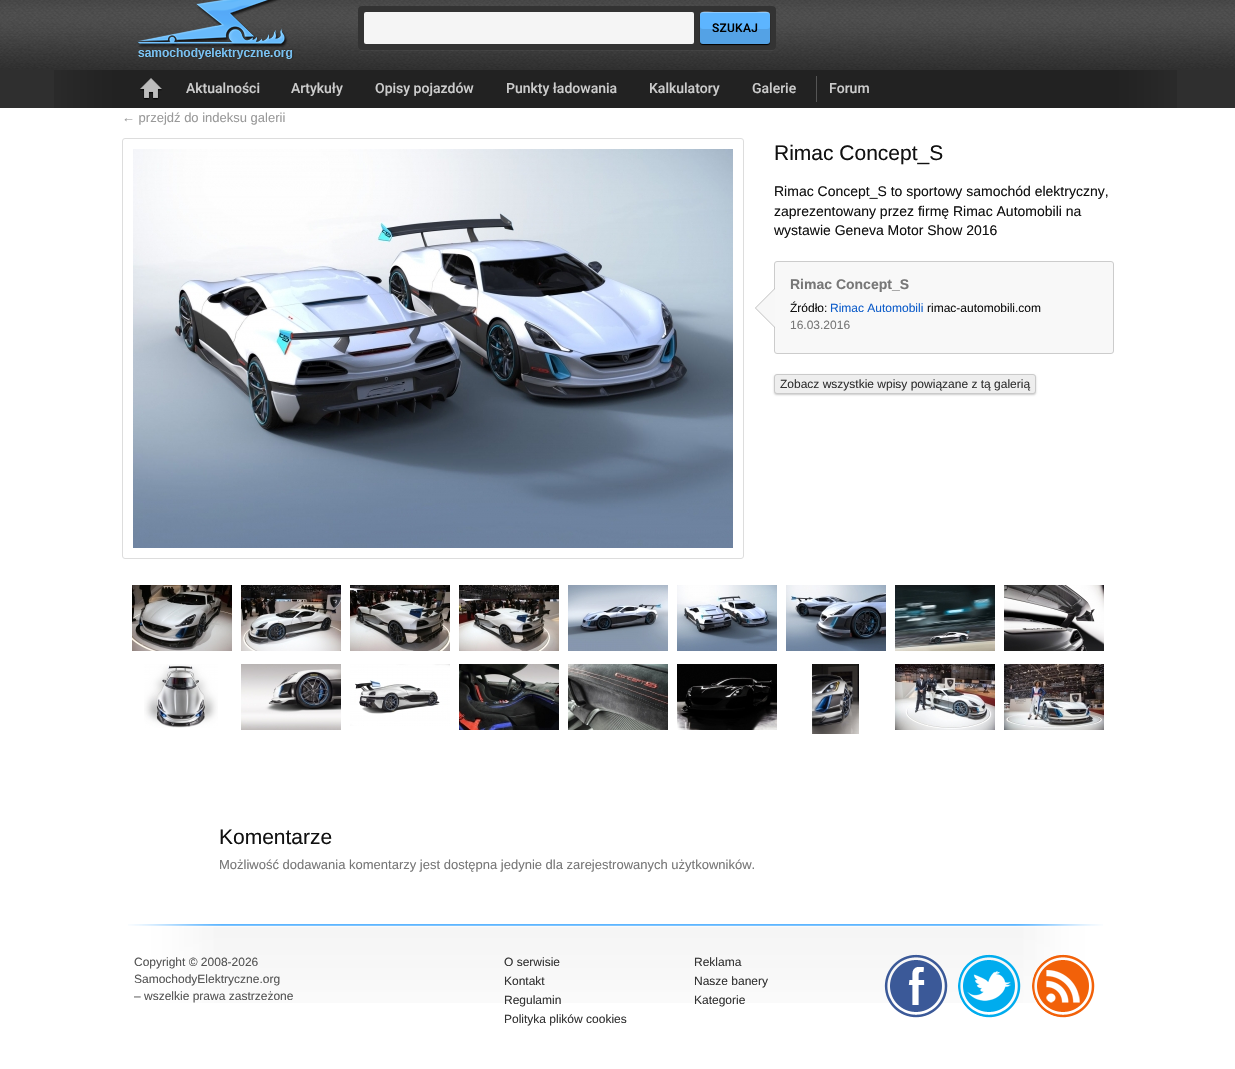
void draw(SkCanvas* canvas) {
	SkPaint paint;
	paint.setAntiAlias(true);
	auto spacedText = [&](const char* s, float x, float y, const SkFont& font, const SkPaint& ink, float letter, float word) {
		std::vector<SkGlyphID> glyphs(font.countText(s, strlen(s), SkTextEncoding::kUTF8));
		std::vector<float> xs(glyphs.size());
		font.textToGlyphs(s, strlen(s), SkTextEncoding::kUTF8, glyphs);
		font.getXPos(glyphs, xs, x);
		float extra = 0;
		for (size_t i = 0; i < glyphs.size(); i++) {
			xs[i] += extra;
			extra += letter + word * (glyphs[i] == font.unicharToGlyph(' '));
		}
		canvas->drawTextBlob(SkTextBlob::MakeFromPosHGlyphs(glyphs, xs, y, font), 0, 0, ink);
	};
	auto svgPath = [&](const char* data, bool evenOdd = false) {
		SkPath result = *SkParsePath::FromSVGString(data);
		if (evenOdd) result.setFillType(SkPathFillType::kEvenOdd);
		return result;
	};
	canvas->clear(0xffffffff);
	canvas->drawImageRect(SkImages::DeferredFromEncodedData(SkData::MakeFromFileName("img1.png")), SkRect::MakeXYWH(0, 0, 1235, 70), SkSamplingOptions());
	canvas->drawImageRect(SkImages::DeferredFromEncodedData(SkData::MakeFromFileName("img2.png")), SkRect::MakeXYWH(137, 0, 157, 60), SkSamplingOptions());
	paint.setColor(0x0affffff);
	canvas->drawPath(svgPath("M358 46V47C358 49 360 51 362 51H772C774 51 776 49 776 47V46C776 48 774 50 772 50H362C360 50 358 48 358 46Z"), paint);
	paint.setColor(0xff333333);
	canvas->drawRoundRect(SkRect::MakeXYWH(358, 6, 418, 44), 4, 4, paint);
	paint.setColor(0xfff5f5f5);
	canvas->drawRoundRect(SkRect::MakeXYWH(364, 12, 330, 32), 2, 2, paint);
	paint.setColor(0xff000000);
	paint.setMaskFilter(SkMaskFilter::MakeBlur(kNormal_SkBlurStyle, 0.5));
	canvas->drawRoundRect(SkRect::MakeXYWH(700, 13, 70, 32), 3, 3, paint);
	paint.setMaskFilter(nullptr);
	paint.setColor(0xff5db5ff);
	canvas->drawRoundRect(SkRect::MakeXYWH(700, 12, 70, 32), 3, 3, paint);
	paint.setColor(0x4dffffff);
	canvas->drawPath(svgPath("M703 13H767C769 13 770 14 770 16C770 9 761 12 756 12H714C709 12 700 9 700 16C700 14 701 13 703 13Z"), paint);
	paint.setColor(0x1a000000);
	canvas->drawPath(svgPath("M700 26V41C700 43 701 44 703 44H767C769 44 770 43 770 41V26C770 28 769 29 767 29H703C701 29 700 28 700 26Z"), paint);
	SkFont f1(fontMgr->matchFamilyStyle("Roboto", SkFontStyle(500, SkFontStyle::kNormal_Width, SkFontStyle::kUpright_Slant)), 12);
	f1.setSubpixel(true);
	paint.setColor(0xff000000);
	spacedText("SZUKAJ", 712, 32, f1, paint, 0.25, 0);
	paint.setColor(0xff2f2f2f);
	canvas->drawRect(SkRect::MakeXYWH(0, 70, 1235, 38), paint);
	canvas->drawImageRect(SkImages::DeferredFromEncodedData(SkData::MakeFromFileName("img3.png")), SkRect::MakeXYWH(54, 70, 1123, 38), SkSamplingOptions());
	canvas->drawImageRect(SkImages::DeferredFromEncodedData(SkData::MakeFromFileName("img4.png")), SkRect::MakeXYWH(140, 78, 22, 22), SkSamplingOptions());
	SkFont f2(fontMgr->matchFamilyStyle("Roboto", SkFontStyle(500, SkFontStyle::kNormal_Width, SkFontStyle::kUpright_Slant)), 14);
	f2.setSubpixel(true);
	paint.setColor(0xffcccccc);
	canvas->drawString("Aktualności", 186, 93, f2, paint);
	canvas->drawString("Artykuły", 291, 93, f2, paint);
	canvas->drawString("Opisy pojazdów", 375, 93, f2, paint);
	canvas->drawString("Punkty ładowania", 506, 93, f2, paint);
	canvas->drawString("Kalkulatory", 649, 93, f2, paint);
	canvas->drawString("Galerie", 752, 93, f2, paint);
	paint.setColor(0xff555555);
	canvas->drawRect(SkRect::MakeXYWH(816, 76, 1, 26), paint);
	paint.setColor(0xffcccccc);
	canvas->drawString("Forum", 829, 93, f2, paint);
	SkFont f3(fontMgr->matchFamilyStyle("Liberation Sans", SkFontStyle::Normal()), 13);
	f3.setSubpixel(true);
	paint.setColor(0xff999999);
	canvas->drawString("← przejdź do indeksu galerii", 122, 122, f3, paint);
	paint.setStroke(true);
	paint.setStrokeWidth(1);
	paint.setColor(0xffdddddd);
	canvas->drawRoundRect(SkRect::MakeXYWH(122.5, 138.5, 621, 420), 2.5, 2.5, paint);
	canvas->drawImageRect(SkImages::DeferredFromEncodedData(SkData::MakeFromFileName("img5.png")), SkRect::MakeXYWH(133, 149, 600, 399), SkSamplingOptions());
	SkFont f4(fontMgr->matchFamilyStyle("Liberation Sans", SkFontStyle::Normal()), 21);
	f4.setSubpixel(true);
	paint.setStroke(false);
	paint.setColor(0xff111111);
	canvas->drawString("Rimac Concept_S", 774, 160, f4, paint);
	SkFont f5(fontMgr->matchFamilyStyle("Liberation Sans", SkFontStyle::Normal()), 14);
	f5.setSubpixel(true);
	canvas->drawString("Rimac Concept_S to sportowy samochód elektryczny,", 774, 196, f5, paint);
	canvas->drawString("zaprezentowany przez firmę Rimac Automobili na", 774, 216, f5, paint);
	canvas->drawString("wystawie Geneva Motor Show 2016", 774, 235, f5, paint);
	paint.setColor(0xfff8f8f8);
	canvas->drawRoundRect(SkRect::MakeXYWH(774.5, 261.5, 339, 92), 2.5, 2.5, paint);
	paint.setStroke(true);
	paint.setColor(0xffcccccc);
	canvas->drawRoundRect(SkRect::MakeXYWH(774.5, 261.5, 339, 92), 2.5, 2.5, paint);
	SkFont f6(fontMgr->matchFamilyStyle("Liberation Sans", SkFontStyle::Bold()), 14);
	f6.setSubpixel(true);
	paint.setStroke(false);
	paint.setColor(0xff777777);
	canvas->drawString("Rimac Concept_S", 790, 289, f6, paint);
	canvas->drawImageRect(SkImages::DeferredFromEncodedData(SkData::MakeFromFileName("img6.png")), SkRect::MakeXYWH(755, 288, 20, 40), SkSamplingOptions());
	SkFont f7(fontMgr->matchFamilyStyle("Liberation Sans", SkFontStyle::Normal()), 12);
	f7.setSubpixel(true);
	paint.setColor(0xff111111);
	canvas->drawString("Źródło:", 790, 312, f7, paint);
	paint.setColor(0xff0e5dca);
	canvas->drawString("Rimac Automobili", 830, 312, f7, paint);
	paint.setColor(0xff111111);
	canvas->drawString("rimac-automobili.com", 927, 312, f7, paint);
	paint.setColor(0xff777777);
	canvas->drawString("16.03.2016", 790, 329, f7, paint);
	paint.setColor(0x33000000);
	paint.setMaskFilter(SkMaskFilter::MakeBlur(kNormal_SkBlurStyle, 1));
	canvas->drawRoundRect(SkRect::MakeXYWH(774, 375, 262, 20), 3, 3, paint);
	paint.setMaskFilter(nullptr);
	paint.setColor(0xffeeeeee);
	canvas->drawRoundRect(SkRect::MakeXYWH(774.5, 374.5, 261, 19), 2.5, 2.5, paint);
	paint.setStroke(true);
	paint.setColor(0xffcacaca);
	canvas->drawRoundRect(SkRect::MakeXYWH(774.5, 374.5, 261, 19), 2.5, 2.5, paint);
	paint.setStroke(false);
	paint.setColor(0xff333333);
	canvas->drawString("Zobacz wszystkie wpisy powiązane z tą galerią", 780, 388, f7, paint);
	canvas->drawImageRect(SkImages::DeferredFromEncodedData(SkData::MakeFromFileName("img7.png")), SkRect::MakeXYWH(132, 585, 100, 66), SkSamplingOptions());
	canvas->drawImageRect(SkImages::DeferredFromEncodedData(SkData::MakeFromFileName("img8.png")), SkRect::MakeXYWH(241, 585, 100, 66), SkSamplingOptions());
	canvas->drawImageRect(SkImages::DeferredFromEncodedData(SkData::MakeFromFileName("img9.png")), SkRect::MakeXYWH(350, 585, 100, 66), SkSamplingOptions());
	canvas->drawImageRect(SkImages::DeferredFromEncodedData(SkData::MakeFromFileName("img10.png")), SkRect::MakeXYWH(459, 585, 100, 66), SkSamplingOptions());
	canvas->drawImageRect(SkImages::DeferredFromEncodedData(SkData::MakeFromFileName("img11.png")), SkRect::MakeXYWH(568, 585, 100, 66), SkSamplingOptions());
	canvas->drawImageRect(SkImages::DeferredFromEncodedData(SkData::MakeFromFileName("img12.png")), SkRect::MakeXYWH(677, 585, 100, 66), SkSamplingOptions());
	canvas->drawImageRect(SkImages::DeferredFromEncodedData(SkData::MakeFromFileName("img13.png")), SkRect::MakeXYWH(786, 585, 100, 66), SkSamplingOptions());
	canvas->drawImageRect(SkImages::DeferredFromEncodedData(SkData::MakeFromFileName("img14.png")), SkRect::MakeXYWH(895, 585, 100, 66), SkSamplingOptions());
	canvas->drawImageRect(SkImages::DeferredFromEncodedData(SkData::MakeFromFileName("img15.png")), SkRect::MakeXYWH(1004, 585, 100, 66), SkSamplingOptions());
	canvas->drawImageRect(SkImages::DeferredFromEncodedData(SkData::MakeFromFileName("img16.png")), SkRect::MakeXYWH(144, 664, 74, 64), SkSamplingOptions());
	canvas->drawImageRect(SkImages::DeferredFromEncodedData(SkData::MakeFromFileName("img17.png")), SkRect::MakeXYWH(241, 664, 100, 66), SkSamplingOptions());
	canvas->drawImageRect(SkImages::DeferredFromEncodedData(SkData::MakeFromFileName("img18.png")), SkRect::MakeXYWH(350, 664, 100, 62), SkSamplingOptions());
	canvas->drawImageRect(SkImages::DeferredFromEncodedData(SkData::MakeFromFileName("img19.png")), SkRect::MakeXYWH(459, 664, 100, 66), SkSamplingOptions());
	canvas->drawImageRect(SkImages::DeferredFromEncodedData(SkData::MakeFromFileName("img20.png")), SkRect::MakeXYWH(568, 664, 100, 66), SkSamplingOptions());
	canvas->drawImageRect(SkImages::DeferredFromEncodedData(SkData::MakeFromFileName("img21.png")), SkRect::MakeXYWH(677, 664, 100, 66), SkSamplingOptions());
	canvas->drawImageRect(SkImages::DeferredFromEncodedData(SkData::MakeFromFileName("img22.png")), SkRect::MakeXYWH(812, 664, 47, 70), SkSamplingOptions());
	canvas->drawImageRect(SkImages::DeferredFromEncodedData(SkData::MakeFromFileName("img23.png")), SkRect::MakeXYWH(895, 664, 100, 66), SkSamplingOptions());
	canvas->drawImageRect(SkImages::DeferredFromEncodedData(SkData::MakeFromFileName("img24.png")), SkRect::MakeXYWH(1004, 664, 100, 66), SkSamplingOptions());
	paint.setColor(0xff111111);
	canvas->drawString("Komentarze", 219, 844, f4, paint);
	paint.setColor(0xff777777);
	canvas->drawString("Możliwość dodawania komentarzy jest dostępna jedynie dla zarejestrowanych użytkowników.", 219, 869, f3, paint);
	canvas->drawImageRect(SkImages::DeferredFromEncodedData(SkData::MakeFromFileName("img25.png")), SkRect::MakeXYWH(128, 924, 975, 79), SkSamplingOptions());
	paint.setColor(0xff555555);
	canvas->drawString("Copyright © 2008-2026", 134, 966, f7, paint);
	canvas->drawString("SamochodyElektryczne.org", 134, 983, f7, paint);
	canvas->drawString("– wszelkie prawa zastrzeżone", 134, 1000, f7, paint);
	paint.setColor(0xff333333);
	canvas->drawString("O serwisie", 504, 966, f7, paint);
	canvas->drawString("Kontakt", 504, 985, f7, paint);
	canvas->drawString("Regulamin", 504, 1004, f7, paint);
	canvas->drawString("Polityka plików cookies", 504, 1023, f7, paint);
	canvas->drawString("Reklama", 694, 966, f7, paint);
	canvas->drawString("Nasze banery", 694, 985, f7, paint);
	canvas->drawString("Kategorie", 694, 1004, f7, paint);
	canvas->drawImageRect(SkImages::DeferredFromEncodedData(SkData::MakeFromFileName("img26.png")), SkRect::MakeXYWH(884, 954, 64, 64), SkSamplingOptions());
	canvas->drawImageRect(SkImages::DeferredFromEncodedData(SkData::MakeFromFileName("img27.png")), SkRect::MakeXYWH(958, 954, 63, 64), SkSamplingOptions());
	canvas->drawImageRect(SkImages::DeferredFromEncodedData(SkData::MakeFromFileName("img28.png")), SkRect::MakeXYWH(1032, 954, 63, 64), SkSamplingOptions());
}
